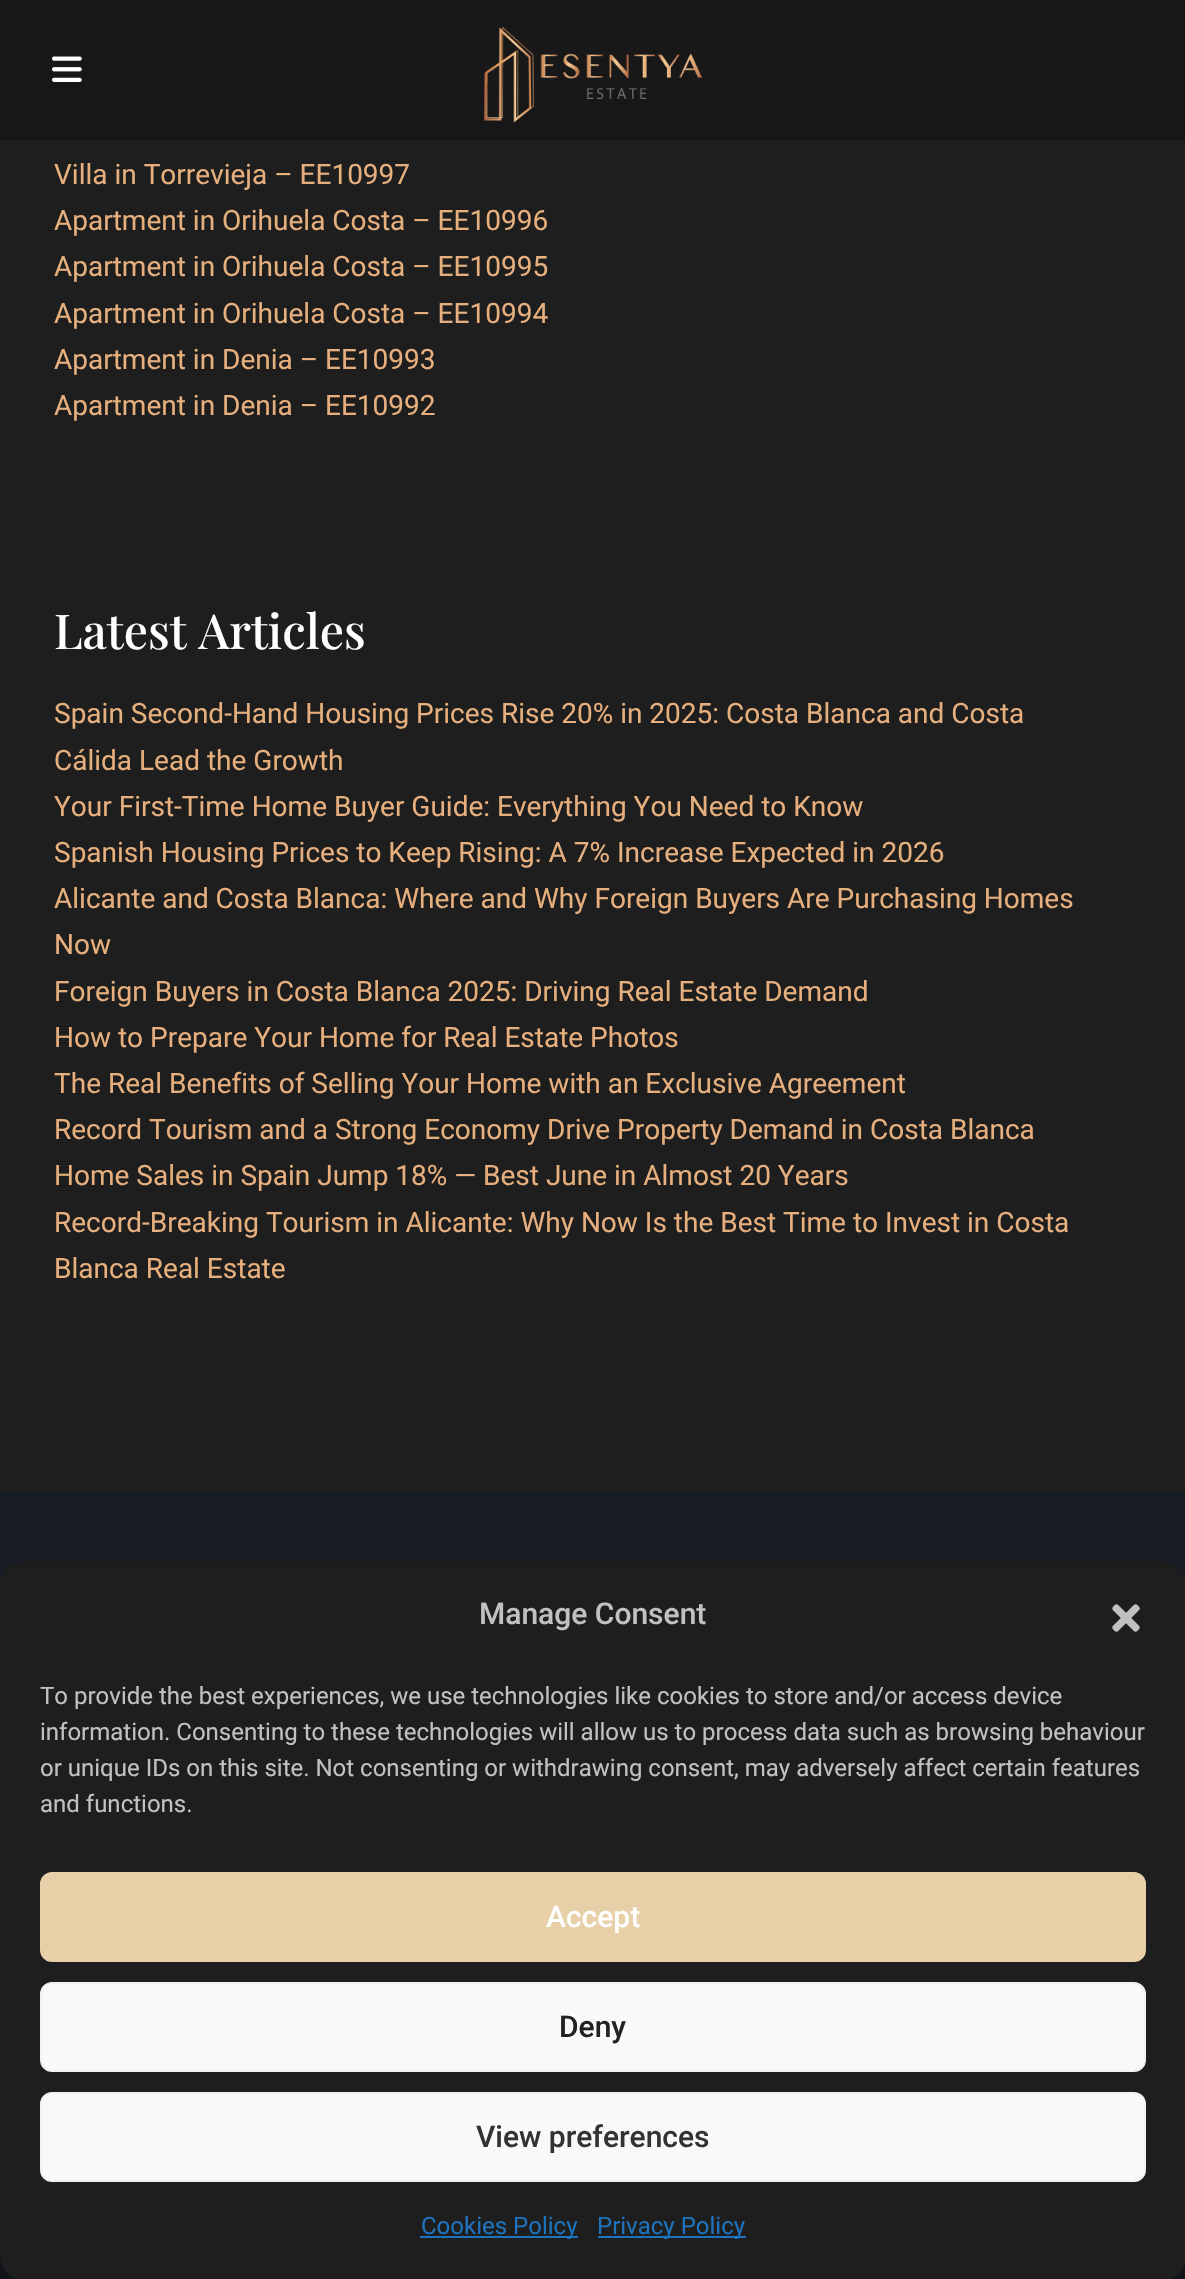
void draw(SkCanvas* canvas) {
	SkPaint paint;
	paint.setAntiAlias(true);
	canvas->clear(0xff181d24);
	paint.setColor(0xff171719);
	canvas->drawRect(SkRect::MakeXYWH(0, 0, 1185, 140), paint);
	canvas->drawImageRect(SkImages::DeferredFromEncodedData(SkData::MakeFromFileName("img1.png")), SkRect::MakeXYWH(52, 56, 30, 26), SkSamplingOptions());
	canvas->drawImageRect(SkImages::DeferredFromEncodedData(SkData::MakeFromFileName("img2.png")), SkRect::MakeXYWH(484, 27, 219, 96), SkSamplingOptions());
	paint.setColor(0xff1e1e1e);
	canvas->drawRect(SkRect::MakeXYWH(0, 140, 1185, 1352), paint);
	SkFont f1(fontMgr->matchFamilyStyle("Roboto", SkFontStyle::Normal()), 28);
	f1.setSubpixel(true);
	paint.setColor(0xffe6af7d);
	canvas->drawString("Villa in Torrevieja – EE10997", 54, 184, f1, paint);
	canvas->drawString("Apartment in Orihuela Costa – EE10996", 54, 230, f1, paint);
	canvas->drawString("Apartment in Orihuela Costa – EE10995", 54, 276, f1, paint);
	canvas->drawString("Apartment in Orihuela Costa – EE10994", 54, 323, f1, paint);
	canvas->drawString("Apartment in Denia – EE10993", 54, 369, f1, paint);
	canvas->drawString("Apartment in Denia – EE10992", 54, 415, f1, paint);
	SkFont f2(fontMgr->matchFamilyStyle("Playfair Display", SkFontStyle(500, SkFontStyle::kNormal_Width, SkFontStyle::kUpright_Slant)), 48);
	f2.setSubpixel(true);
	paint.setColor(0xffffffff);
	canvas->drawString("Latest Articles", 54, 649, f2, paint);
	paint.setColor(0xffe6af7d);
	canvas->drawString("Spain Second-Hand Housing Prices Rise 20% in 2025: Costa Blanca and Costa", 54, 723, f1, paint);
	canvas->drawString("Cálida Lead the Growth", 54, 770, f1, paint);
	canvas->drawString("Your First-Time Home Buyer Guide: Everything You Need to Know", 54, 816, f1, paint);
	canvas->drawString("Spanish Housing Prices to Keep Rising: A 7% Increase Expected in 2026", 54, 862, f1, paint);
	canvas->drawString("Alicante and Costa Blanca: Where and Why Foreign Buyers Are Purchasing Homes", 54, 908, f1, paint);
	canvas->drawString("Now", 54, 954, f1, paint);
	canvas->drawString("Foreign Buyers in Costa Blanca 2025: Driving Real Estate Demand", 54, 1001, f1, paint);
	canvas->drawString("How to Prepare Your Home for Real Estate Photos", 54, 1047, f1, paint);
	canvas->drawString("The Real Benefits of Selling Your Home with an Exclusive Agreement", 54, 1093, f1, paint);
	canvas->drawString("Record Tourism and a Strong Economy Drive Property Demand in Costa Blanca", 54, 1139, f1, paint);
	canvas->drawString("Home Sales in Spain Jump 18% — Best June in Almost 20 Years", 54, 1185, f1, paint);
	canvas->drawString("Record-Breaking Tourism in Alicante: Why Now Is the Best Time to Invest in Costa", 54, 1232, f1, paint);
	canvas->drawString("Blanca Real Estate", 54, 1278, f1, paint);
	paint.setColor(0xff101419);
	canvas->drawRect(SkRect::MakeXYWH(0, 2256, 1185, 23), paint);
	paint.setColor(0xff1e1e1e);
	canvas->drawRoundRect(SkRect::MakeXYWH(0, 1562, 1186, 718), 24, 24, paint);
	SkFont f3(fontMgr->matchFamilyStyle("Roboto", SkFontStyle(500, SkFontStyle::kNormal_Width, SkFontStyle::kUpright_Slant)), 30);
	f3.setSubpixel(true);
	paint.setColor(0xffc1c1c1);
	canvas->drawString("Manage Consent", 479, 1624, f3, paint);
	canvas->drawImageRect(SkImages::DeferredFromEncodedData(SkData::MakeFromFileName("img3.png")), SkRect::MakeXYWH(1112, 1604, 28, 28), SkSamplingOptions());
	SkFont f4(fontMgr->matchFamilyStyle("Roboto", SkFontStyle::Normal()), 24);
	f4.setSubpixel(true);
	canvas->drawString("To provide the best experiences, we use technologies like cookies to store and/or access device", 40, 1704, f4, paint);
	canvas->drawString("information. Consenting to these technologies will allow us to process data such as browsing behaviour", 40, 1740, f4, paint);
	canvas->drawString("or unique IDs on this site. Not consenting or withdrawing consent, may adversely affect certain features", 40, 1776, f4, paint);
	canvas->drawString("and functions.", 40, 1812, f4, paint);
	paint.setColor(0xffe7cfa7);
	canvas->drawRoundRect(SkRect::MakeXYWH(41, 1873, 1104, 88), 11, 11, paint);
	paint.setStroke(true);
	paint.setStrokeWidth(2);
	canvas->drawRoundRect(SkRect::MakeXYWH(41, 1873, 1104, 88), 11, 11, paint);
	paint.setStroke(false);
	paint.setColor(0xffffffff);
	canvas->drawString("Accept", 546, 1927, f3, paint);
	paint.setColor(0xfff9f9f9);
	canvas->drawRoundRect(SkRect::MakeXYWH(41, 1983, 1104, 88), 11, 11, paint);
	paint.setStroke(true);
	paint.setColor(0xfff2f2f2);
	canvas->drawRoundRect(SkRect::MakeXYWH(41, 1983, 1104, 88), 11, 11, paint);
	paint.setStroke(false);
	paint.setColor(0xff222222);
	canvas->drawString("Deny", 559, 2037, f3, paint);
	paint.setColor(0xfff9f9f9);
	canvas->drawRoundRect(SkRect::MakeXYWH(41, 2093, 1104, 88), 11, 11, paint);
	paint.setStroke(true);
	paint.setColor(0xfff2f2f2);
	canvas->drawRoundRect(SkRect::MakeXYWH(41, 2093, 1104, 88), 11, 11, paint);
	paint.setStroke(false);
	paint.setColor(0xff333333);
	canvas->drawString("View preferences", 476, 2147, f3, paint);
	paint.setColor(0xff1e73be);
	canvas->drawRect(SkRect::MakeXYWH(420, 2236, 158, 2), paint);
	canvas->drawString("Cookies Policy", 421, 2234, f4, paint);
	canvas->drawRect(SkRect::MakeXYWH(598, 2236, 148, 2), paint);
	canvas->drawString("Privacy Policy", 597, 2234, f4, paint);
}
